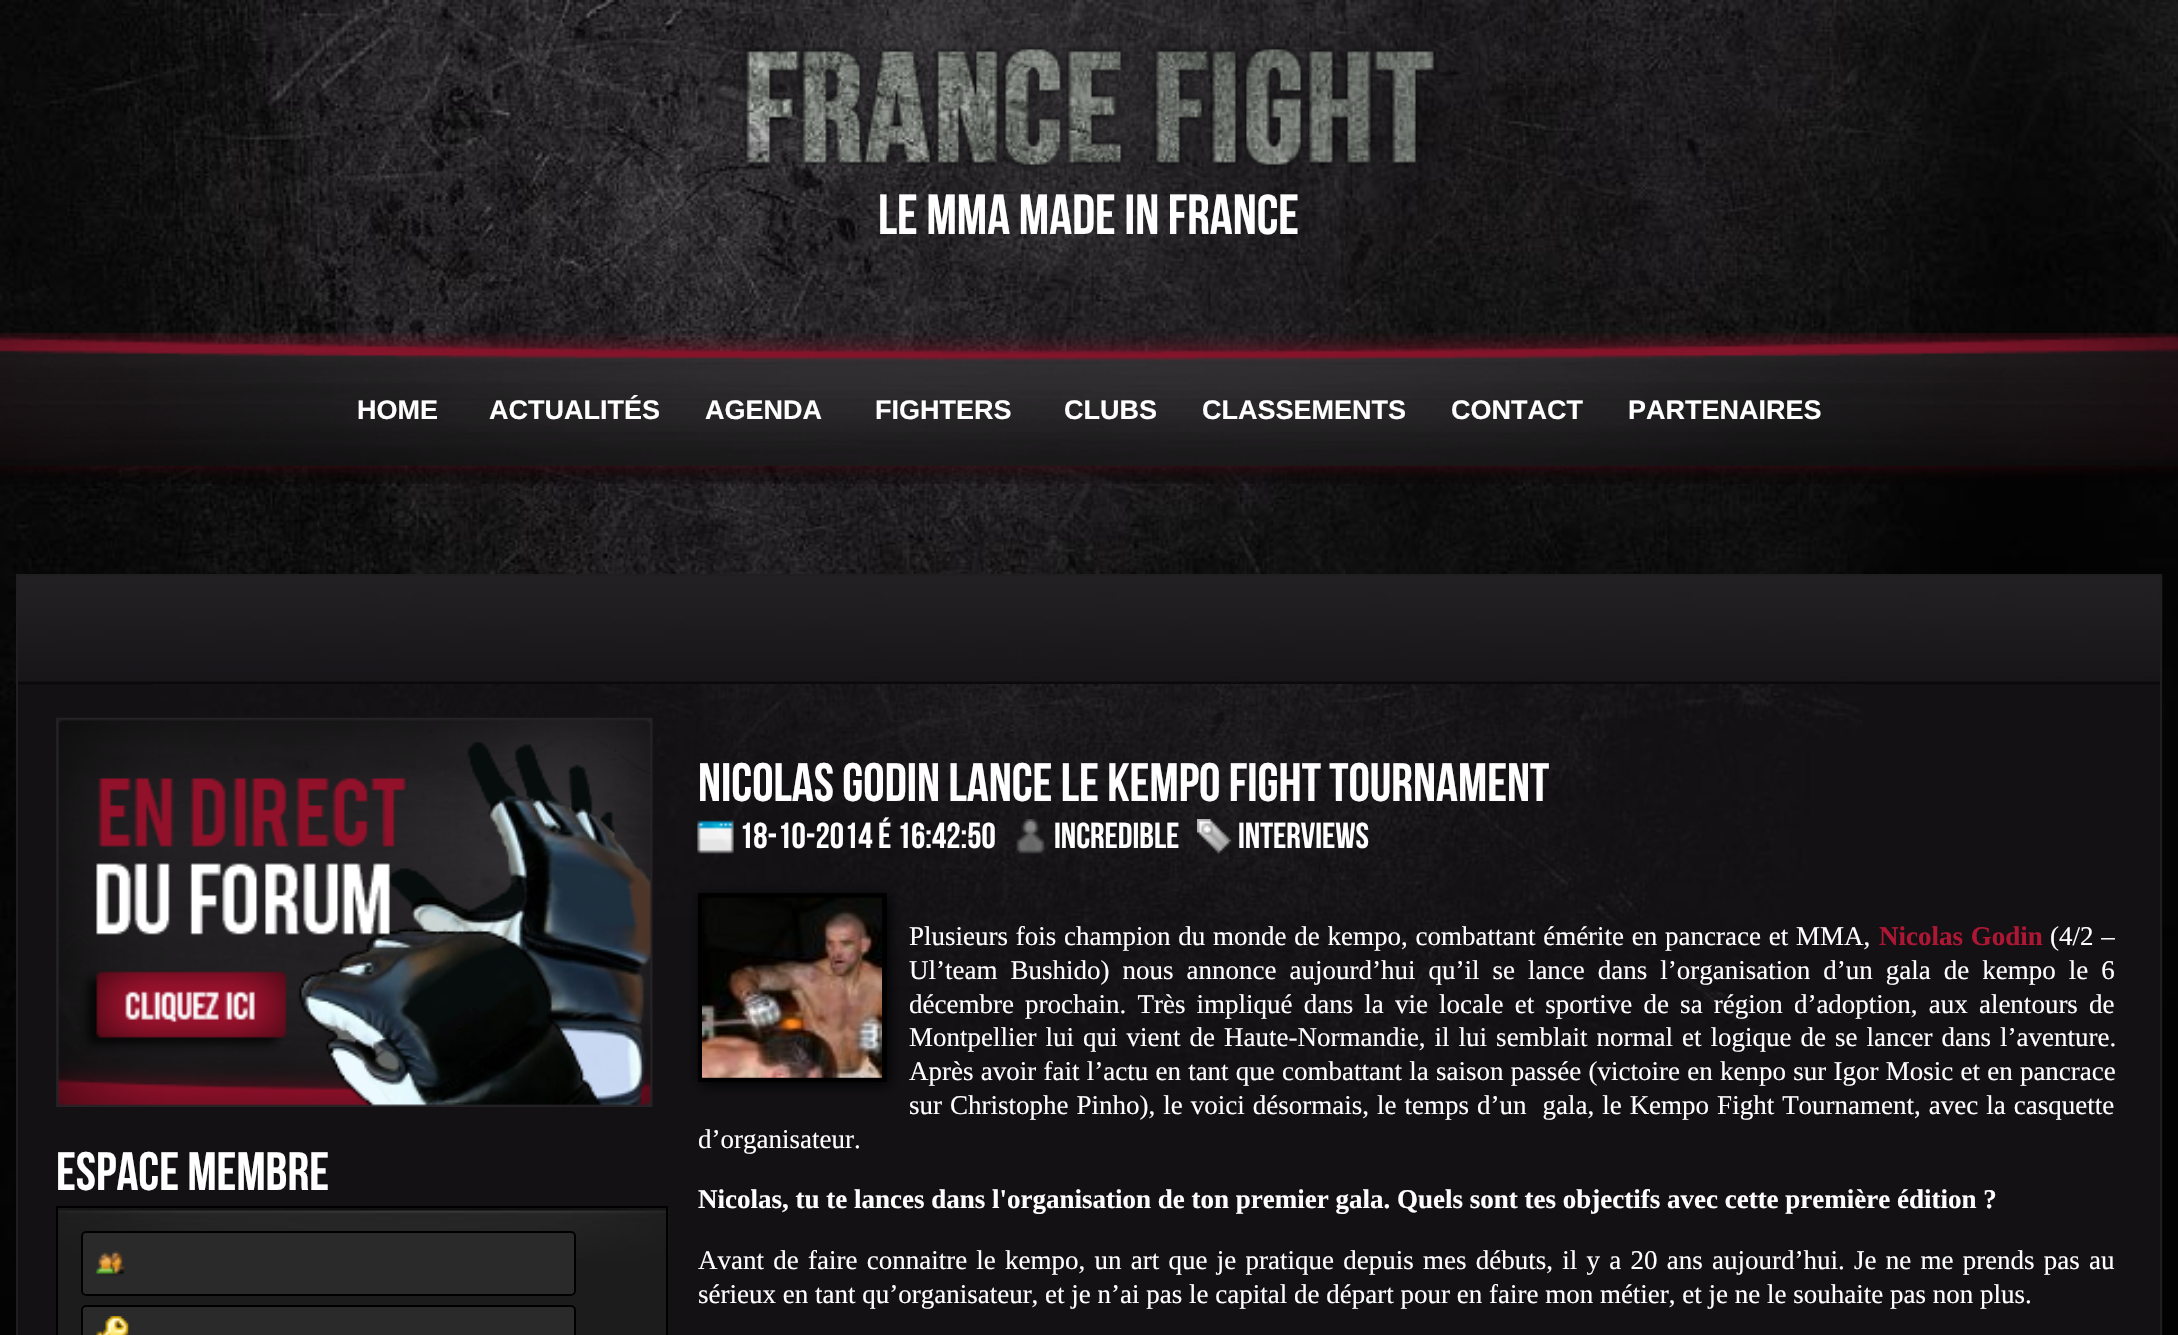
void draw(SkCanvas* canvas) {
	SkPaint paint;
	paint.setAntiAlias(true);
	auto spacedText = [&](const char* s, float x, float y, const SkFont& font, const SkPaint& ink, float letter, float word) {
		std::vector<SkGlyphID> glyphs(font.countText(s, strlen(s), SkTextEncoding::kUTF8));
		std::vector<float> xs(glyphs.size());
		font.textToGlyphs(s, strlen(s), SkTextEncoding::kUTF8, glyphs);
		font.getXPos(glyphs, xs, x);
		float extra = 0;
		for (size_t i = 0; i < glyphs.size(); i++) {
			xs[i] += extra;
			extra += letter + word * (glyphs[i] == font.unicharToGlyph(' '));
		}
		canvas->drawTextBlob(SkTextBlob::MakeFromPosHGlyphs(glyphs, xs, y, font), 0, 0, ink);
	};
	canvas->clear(0xffffffff);
	canvas->drawImageRect(SkImages::DeferredFromEncodedData(SkData::MakeFromFileName("img1.png")), SkRect::MakeXYWH(0, 0, 2178, 1335), SkSamplingOptions());
	canvas->drawImageRect(SkImages::DeferredFromEncodedData(SkData::MakeFromFileName("img2.png")), SkRect::MakeXYWH(742, 44, 695, 125), SkSamplingOptions());
	SkFont f1(fontMgr->matchFamilyStyle("Bebas Neue", SkFontStyle::Normal()), 56.25);
	f1.setSubpixel(true);
	paint.setColor(0xffffffff);
	canvas->drawString("LE MMA MADE IN FRANCE", 878, 234, f1, paint);
	canvas->drawImageRect(SkImages::DeferredFromEncodedData(SkData::MakeFromFileName("img3.png")), SkRect::MakeXYWH(0, 333, 2178, 151), SkSamplingOptions());
	SkFont f2(fontMgr->matchFamilyStyle("Liberation Sans", SkFontStyle::Bold()), 27);
	f2.setSubpixel(true);
	canvas->drawString("HOME", 357, 419, f2, paint);
	canvas->drawString("ACTUALITÉS", 489, 419, f2, paint);
	canvas->drawString("AGENDA", 705, 419, f2, paint);
	canvas->drawString("FIGHTERS", 875, 419, f2, paint);
	canvas->drawString("CLUBS", 1064, 419, f2, paint);
	canvas->drawString("CLASSEMENTS", 1202, 419, f2, paint);
	canvas->drawString("CONTACT", 1451, 419, f2, paint);
	canvas->drawString("PARTENAIRES", 1628, 419, f2, paint);
	canvas->drawImageRect(SkImages::DeferredFromEncodedData(SkData::MakeFromFileName("img4.png")), SkRect::MakeXYWH(18, 576, 2145, 759), SkSamplingOptions());
	paint.setStroke(true);
	paint.setStrokeWidth(2);
	paint.setColor(0xff201e20);
	canvas->drawRect(SkRect::MakeXYWH(17, 575, 2144, 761), paint);
	canvas->drawImageRect(SkImages::DeferredFromEncodedData(SkData::MakeFromFileName("img5.png")), SkRect::MakeXYWH(154, 684, 1708, 413), SkSamplingOptions());
	canvas->drawImageRect(SkImages::DeferredFromEncodedData(SkData::MakeFromFileName("img6.png")), SkRect::MakeXYWH(56, 717, 597, 390), SkSamplingOptions());
	SkFont f3(fontMgr->matchFamilyStyle("Bebas Neue", SkFontStyle::Normal()), 54);
	f3.setSubpixel(true);
	paint.setStroke(false);
	paint.setColor(0xffffffff);
	canvas->drawString("ESPACE MEMBRE", 56, 1190, f3, paint);
	paint.setColor(0xff1c1c1c);
	canvas->drawRect(SkRect::MakeXYWH(58, 1208, 608, 127), paint);
	canvas->drawImageRect(SkImages::DeferredFromEncodedData(SkData::MakeFromFileName("img7.png")), SkRect::MakeXYWH(58, 1208, 611, 51), SkSamplingOptions());
	paint.setStroke(true);
	paint.setColor(0xff000000);
	canvas->drawRect(SkRect::MakeXYWH(57, 1207, 610, 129), paint);
	paint.setStroke(false);
	paint.setColor(0xff2a2a2a);
	canvas->drawRoundRect(SkRect::MakeXYWH(81, 1231, 495, 65), 5, 5, paint);
	canvas->drawImageRect(SkImages::DeferredFromEncodedData(SkData::MakeFromFileName("img8.png")), SkRect::MakeXYWH(94, 1250, 31, 26), SkSamplingOptions());
	paint.setStroke(true);
	paint.setColor(0xff000000);
	canvas->drawRoundRect(SkRect::MakeXYWH(82, 1232, 493, 63), 4, 4, paint);
	paint.setStroke(false);
	paint.setColor(0xff2a2a2a);
	canvas->drawRoundRect(SkRect::MakeXYWH(81, 1305, 495, 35), 5, 5, paint);
	canvas->drawImageRect(SkImages::DeferredFromEncodedData(SkData::MakeFromFileName("img9.png")), SkRect::MakeXYWH(96, 1316, 33, 19), SkSamplingOptions());
	paint.setStroke(true);
	paint.setColor(0xff000000);
	canvas->drawRoundRect(SkRect::MakeXYWH(82, 1306, 493, 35), 4, 4, paint);
	paint.setStroke(false);
	paint.setColor(0xffffffff);
	canvas->drawString("NICOLAS GODIN LANCE LE KEMPO FIGHT TOURNAMENT", 698, 801, f3, paint);
	canvas->drawImageRect(SkImages::DeferredFromEncodedData(SkData::MakeFromFileName("img10.png")), SkRect::MakeXYWH(697, 820, 37, 34), SkSamplingOptions());
	SkFont f4(fontMgr->matchFamilyStyle("Bebas Neue", SkFontStyle::Normal()), 36);
	f4.setSubpixel(true);
	canvas->drawString("18-10-2014 é 16:42:50", 739, 848, f4, paint);
	canvas->drawImageRect(SkImages::DeferredFromEncodedData(SkData::MakeFromFileName("img11.png")), SkRect::MakeXYWH(1016, 819, 29, 35), SkSamplingOptions());
	canvas->drawString("Incredible", 1054, 848, f4, paint);
	canvas->drawImageRect(SkImages::DeferredFromEncodedData(SkData::MakeFromFileName("img12.png")), SkRect::MakeXYWH(1197, 819, 35, 35), SkSamplingOptions());
	canvas->drawString("Interviews", 1238, 848, f4, paint);
	paint.setColor(0xff000000);
	paint.setMaskFilter(SkMaskFilter::MakeBlur(kNormal_SkBlurStyle, 7));
	canvas->drawRect(SkRect::MakeXYWH(700, 896, 189, 189), paint);
	paint.setMaskFilter(nullptr);
	canvas->drawRect(SkRect::MakeXYWH(698, 893, 189, 189), paint);
	canvas->drawImageRect(SkImages::DeferredFromEncodedData(SkData::MakeFromFileName("img13.png")), SkRect::MakeXYWH(702, 897, 180, 181), SkSamplingOptions());
	SkFont f5(fontMgr->matchFamilyStyle("Liberation Serif", SkFontStyle::Normal()), 27);
	f5.setSubpixel(true);
	paint.setColor(0xffffffff);
	spacedText("Plusieurs fois champion du monde de kempo, combattant émérite en pancrace et MMA,", 909, 945, f5, paint, 0, 1);
	SkFont f6(fontMgr->matchFamilyStyle("Liberation Serif", SkFontStyle::Bold()), 27);
	f6.setSubpixel(true);
	paint.setColor(0xffae1634);
	spacedText("Nicolas Godin", 1879, 945, f6, paint, 0, 1);
	paint.setColor(0xffffffff);
	spacedText("(4/2 –", 2050, 945, f5, paint, 0, 1);
	spacedText("Ul’team Bushido) nous annonce aujourd’hui qu’il se lance dans l’organisation d’un gala de kempo le 6", 909, 979, f5, paint, 0, 6.25);
	spacedText("décembre prochain. Très impliqué dans la vie locale et sportive de sa région d’adoption, aux alentours de", 909, 1013, f5, paint, 0, 4.4);
	spacedText("Montpellier lui qui vient de Haute-Normandie, il lui semblait normal et logique de se lancer dans l’aventure.", 909, 1046, f5, paint, 0, 2.25);
	spacedText("Après avoir fait l’actu en tant que combattant la saison passée (victoire en kenpo sur Igor Mosic et en pancrace", 909, 1080, f5, paint, 0, 0.5);
	spacedText("sur Christophe Pinho), le voici désormais, le temps d’un  gala, le Kempo Fight Tournament, avec la casquette", 909, 1114, f5, paint, 0, 1.25);
	canvas->drawString("d’organisateur.", 698, 1148, f5, paint);
	canvas->drawString("Nicolas, tu te lances dans l'organisation de ton premier gala. Quels sont tes objectifs avec cette première édition ?", 698, 1208, f6, paint);
	spacedText("Avant de faire connaitre le kempo, un art que je pratique depuis mes débuts, il y a 20 ans aujourd’hui. Je ne me prends pas au", 698, 1269, f5, paint, 0, 2.5);
	canvas->drawString("sérieux en tant qu’organisateur, et je n’ai pas le capital de départ pour en faire mon métier, et je ne le souhaite pas non plus.", 698, 1303, f5, paint);
}
